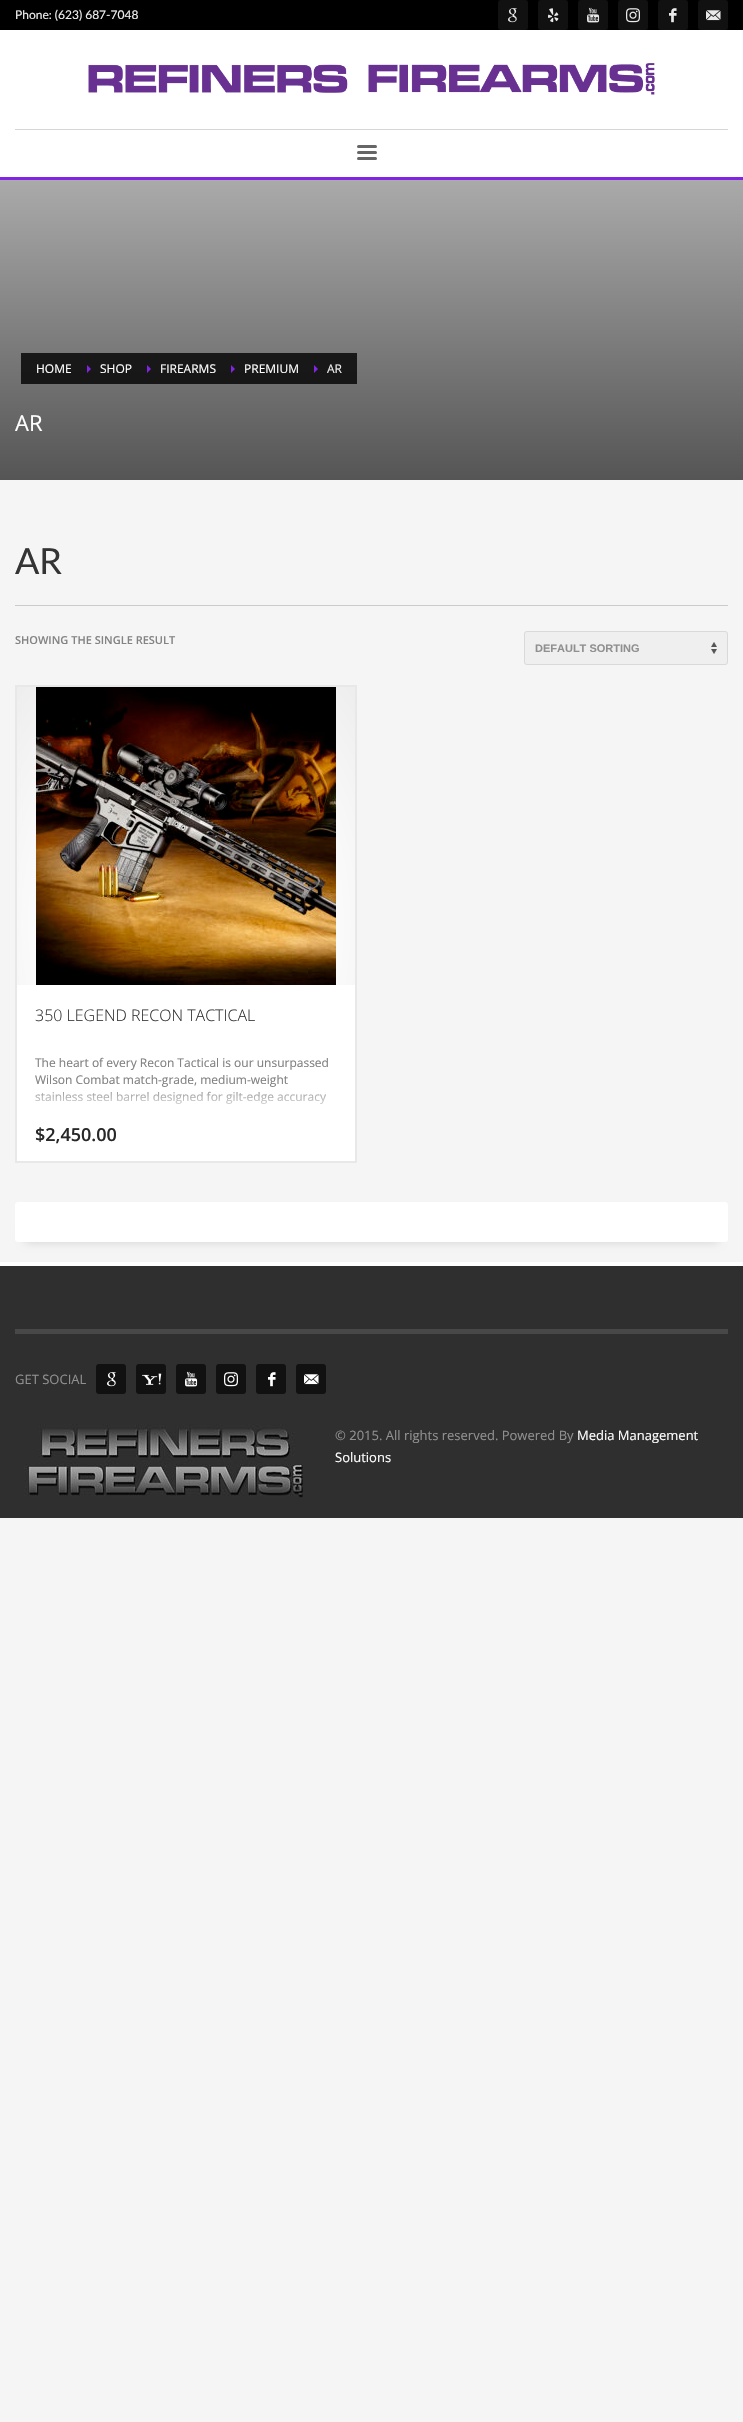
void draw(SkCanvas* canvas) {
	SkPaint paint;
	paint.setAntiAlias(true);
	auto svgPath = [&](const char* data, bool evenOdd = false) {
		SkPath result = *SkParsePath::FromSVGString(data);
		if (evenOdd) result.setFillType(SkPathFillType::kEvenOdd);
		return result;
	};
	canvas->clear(0xfff5f5f5);
	paint.setColor(0xffffffff);
	canvas->drawRect(SkRect::MakeXYWH(0, 30, 743, 147), paint);
	paint.setColor(0xff8224e3);
	canvas->drawRect(SkRect::MakeXYWH(0, 177, 743, 3), paint);
	paint.setColor(0xff000000);
	canvas->drawRect(SkRect::MakeXYWH(0, 0, 743, 30), paint);
	SkFont f1(fontMgr->matchFamilyStyle("Lato", SkFontStyle::Normal()), 12);
	f1.setSubpixel(true);
	paint.setColor(0xffeeeeee);
	canvas->drawString("Phone: (623) 687-7048", 15, 19, f1, paint);
	paint.setColor(0xff111111);
	canvas->drawRoundRect(SkRect::MakeXYWH(498, 0, 30, 30), 3, 3, paint);
	canvas->drawImageRect(SkImages::DeferredFromEncodedData(SkData::MakeFromFileName("img1.png")), SkRect::MakeXYWH(508, 8, 9, 15), SkSamplingOptions());
	canvas->drawRoundRect(SkRect::MakeXYWH(538, 0, 30, 30), 3, 3, paint);
	canvas->drawImageRect(SkImages::DeferredFromEncodedData(SkData::MakeFromFileName("img2.png")), SkRect::MakeXYWH(548, 8, 11, 15), SkSamplingOptions());
	canvas->drawRoundRect(SkRect::MakeXYWH(578, 0, 30, 30), 3, 3, paint);
	canvas->drawImageRect(SkImages::DeferredFromEncodedData(SkData::MakeFromFileName("img3.png")), SkRect::MakeXYWH(587, 7, 13, 16), SkSamplingOptions());
	canvas->drawRoundRect(SkRect::MakeXYWH(618, 0, 30, 30), 3, 3, paint);
	canvas->drawImageRect(SkImages::DeferredFromEncodedData(SkData::MakeFromFileName("img4.png")), SkRect::MakeXYWH(626, 8, 14, 15), SkSamplingOptions());
	canvas->drawRoundRect(SkRect::MakeXYWH(658, 0, 30, 30), 3, 3, paint);
	canvas->drawImageRect(SkImages::DeferredFromEncodedData(SkData::MakeFromFileName("img5.png")), SkRect::MakeXYWH(669, 8, 8, 15), SkSamplingOptions());
	canvas->drawRoundRect(SkRect::MakeXYWH(698, 0, 30, 30), 3, 3, paint);
	canvas->drawImageRect(SkImages::DeferredFromEncodedData(SkData::MakeFromFileName("img6.png")), SkRect::MakeXYWH(706, 10, 15, 11), SkSamplingOptions());
	canvas->drawImageRect(SkImages::DeferredFromEncodedData(SkData::MakeFromFileName("img7.png")), SkRect::MakeXYWH(88, 63, 567, 32), SkSamplingOptions());
	paint.setColor(0xffd6d6d6);
	canvas->drawRect(SkRect::MakeXYWH(15, 129, 713, 1), paint);
	paint.setColor(0xff666666);
	canvas->drawRoundRect(SkRect::MakeXYWH(357, 145, 20, 3), 1.5, 1.5, paint);
	canvas->drawRoundRect(SkRect::MakeXYWH(357, 151, 20, 3), 1.5, 1.5, paint);
	canvas->drawRoundRect(SkRect::MakeXYWH(357, 157, 20, 3), 1.5, 1.5, paint);
	{
		const SkColor colors[] = {0xffaaaaaa, 0xff555555};
		const float stops[] = {0, 1};
		const SkPoint ends[] = {{372, 180}, {372, 480}};
		paint.setShader(SkGradientShader::MakeLinear(ends, colors, stops, 2, SkTileMode::kClamp));
		paint.setAlpha(255);
	}
	canvas->drawRect(SkRect::MakeXYWH(0, 180, 743, 300), paint);
	paint.setShader(nullptr);
	paint.setColor(0xcc000000);
	canvas->drawRect(SkRect::MakeXYWH(21, 353, 56, 31), paint);
	SkFont f2(fontMgr->matchFamilyStyle("Open Sans", SkFontStyle::Normal()), 12);
	f2.setSubpixel(true);
	paint.setColor(0xffffffff);
	canvas->drawString("HOME", 36, 373, f2, paint);
	paint.setColor(0xcc000000);
	canvas->drawRect(SkRect::MakeXYWH(77, 353, 60, 31), paint);
	paint.setColor(0xff8224e3);
	canvas->drawPath(svgPath("M87 373V365L91 369Z"), paint);
	paint.setColor(0xffffffff);
	canvas->drawString("SHOP", 100, 373, f2, paint);
	paint.setColor(0xcc000000);
	canvas->drawRect(SkRect::MakeXYWH(137, 353, 84, 31), paint);
	paint.setColor(0xff8224e3);
	canvas->drawPath(svgPath("M147 373V365L151 369Z"), paint);
	paint.setColor(0xffffffff);
	canvas->drawString("FIREARMS", 160, 373, f2, paint);
	paint.setColor(0xcc000000);
	canvas->drawRect(SkRect::MakeXYWH(221, 353, 83, 31), paint);
	paint.setColor(0xff8224e3);
	canvas->drawPath(svgPath("M231 373V365L235 369Z"), paint);
	paint.setColor(0xffffffff);
	canvas->drawString("PREMIUM", 244, 373, f2, paint);
	paint.setColor(0xcc000000);
	canvas->drawRect(SkRect::MakeXYWH(304, 353, 53, 31), paint);
	paint.setColor(0xff8224e3);
	canvas->drawPath(svgPath("M314 373V365L318 369Z"), paint);
	paint.setColor(0xffeeeeee);
	canvas->drawString("AR", 327, 373, f2, paint);
	SkFont f3(fontMgr->matchFamilyStyle("Open Sans", SkFontStyle::Normal()), 22);
	f3.setSubpixel(true);
	paint.setColor(0xffffffff);
	canvas->drawString("AR", 15, 431, f3, paint);
	paint.setColor(0xffcbcbcb);
	canvas->drawRect(SkRect::MakeXYWH(15, 605, 713, 1), paint);
	SkFont f4(fontMgr->matchFamilyStyle("Lato", SkFontStyle::Normal()), 36);
	f4.setSubpixel(true);
	paint.setColor(0xff343434);
	canvas->drawString("AR", 15, 574, f4, paint);
	SkFont f5(fontMgr->matchFamilyStyle("Open Sans", SkFontStyle(600, SkFontStyle::kNormal_Width, SkFontStyle::kUpright_Slant)), 11);
	f5.setSubpixel(true);
	paint.setColor(0xff838383);
	canvas->drawString("SHOWING THE SINGLE RESULT", 15, 644, f5, paint);
	paint.setColor(0xffefefef);
	canvas->drawRoundRect(SkRect::MakeXYWH(524, 631, 204, 34), 3, 3, paint);
	canvas->drawImageRect(SkImages::DeferredFromEncodedData(SkData::MakeFromFileName("img8.png")), SkRect::MakeXYWH(711, 642, 6, 12), SkSamplingOptions());
	paint.setStroke(true);
	paint.setStrokeWidth(1);
	paint.setColor(0xffd9d9d9);
	canvas->drawRoundRect(SkRect::MakeXYWH(524.5, 631.5, 203, 33), 2.5, 2.5, paint);
	SkFont f6(fontMgr->matchFamilyStyle("Liberation Sans", SkFontStyle::Bold()), 11);
	f6.setSubpixel(true);
	paint.setStroke(false);
	paint.setColor(0xff909090);
	canvas->drawString("DEFAULT SORTING", 535, 652, f6, paint);
	{
		const SkColor colors[] = {0xffffffff, 0xffffffff, 0xffededed};
		const float stops[] = {0, 0.5, 1};
		SkMatrix m = SkMatrix::Translate(186, 924).preScale(242, 338);
		paint.setShader(SkGradientShader::MakeRadial({0, 0}, 1, colors, stops, 3, SkTileMode::kClamp, 0, &m));
		paint.setAlpha(255);
	}
	canvas->drawRect(SkRect::MakeXYWH(17, 687, 338, 298), paint);
	canvas->drawImageRect(SkImages::DeferredFromEncodedData(SkData::MakeFromFileName("img9.png")), SkRect::MakeXYWH(36, 687, 300, 298), SkSamplingOptions());
	paint.setShader(nullptr);
	paint.setColor(0xffffffff);
	canvas->drawRect(SkRect::MakeXYWH(17, 985, 338, 176), paint);
	paint.setStroke(true);
	paint.setStrokeWidth(2);
	paint.setColor(0xffe8e8e8);
	canvas->drawRect(SkRect::MakeXYWH(16, 686, 340, 476), paint);
	SkFont f7(fontMgr->matchFamilyStyle("Open Sans", SkFontStyle(300, SkFontStyle::kNormal_Width, SkFontStyle::kUpright_Slant)), 16);
	f7.setSubpixel(true);
	paint.setStroke(false);
	paint.setColor(0xff343434);
	canvas->drawString("350 LEGEND RECON TACTICAL", 35, 1021, f7, paint);
	{
		const SkColor colors[] = {0xff808080, 0xffffffff};
		const float stops[] = {0.5, 1};
		const SkPoint ends[] = {{186, 1055}, {186, 1115}};
		paint.setShader(SkGradientShader::MakeLinear(ends, colors, stops, 2, SkTileMode::kClamp));
		paint.setAlpha(255);
	}
	canvas->drawString("The heart of every Recon Tactical is our unsurpassed", 35, 1067, f2, paint);
	canvas->drawString("Wilson Combat match-grade, medium-weight", 35, 1084, f2, paint);
	canvas->drawString("stainless steel barrel designed for gilt-edge accuracy", 35, 1101, f2, paint);
	SkFont f8(fontMgr->matchFamilyStyle("Open Sans", SkFontStyle(600, SkFontStyle::kNormal_Width, SkFontStyle::kUpright_Slant)), 18);
	f8.setSubpixel(true);
	paint.setShader(nullptr);
	paint.setColor(0xff282828);
	canvas->drawString("$2,450.00", 35, 1141, f8, paint);
	paint.setColor(0x26000000);
	paint.setMaskFilter(SkMaskFilter::MakeBlur(kNormal_SkBlurStyle, 5));
	canvas->drawRect(SkRect::MakeXYWH(25, 1222, 693, 20), paint);
	paint.setMaskFilter(nullptr);
	paint.setColor(0xffffffff);
	canvas->drawRoundRect(SkRect::MakeXYWH(15, 1202, 713, 40), 3, 3, paint);
	paint.setColor(0xff2f2f2f);
	canvas->drawRect(SkRect::MakeXYWH(0, 1266, 743, 252), paint);
	paint.setColor(0xffffffff);
	canvas->drawRect(SkRect::MakeXYWH(0, 1262, 743, 4), paint);
	paint.setColor(0xff484848);
	canvas->drawRect(SkRect::MakeXYWH(15, 1329, 713, 5), paint);
	SkFont f9(fontMgr->matchFamilyStyle("Open Sans", SkFontStyle::Normal()), 13);
	f9.setSubpixel(true);
	paint.setColor(0xff909090);
	canvas->drawString("GET SOCIAL", 15, 1384, f9, paint);
	paint.setColor(0xff111111);
	canvas->drawRoundRect(SkRect::MakeXYWH(96, 1364, 30, 30), 3, 3, paint);
	canvas->drawImageRect(SkImages::DeferredFromEncodedData(SkData::MakeFromFileName("img10.png")), SkRect::MakeXYWH(107, 1372, 9, 15), SkSamplingOptions());
	canvas->drawRoundRect(SkRect::MakeXYWH(136, 1364, 30, 30), 3, 3, paint);
	canvas->drawImageRect(SkImages::DeferredFromEncodedData(SkData::MakeFromFileName("img11.png")), SkRect::MakeXYWH(142, 1373, 20, 12), SkSamplingOptions());
	canvas->drawRoundRect(SkRect::MakeXYWH(176, 1364, 30, 30), 3, 3, paint);
	canvas->drawImageRect(SkImages::DeferredFromEncodedData(SkData::MakeFromFileName("img12.png")), SkRect::MakeXYWH(185, 1371, 13, 16), SkSamplingOptions());
	canvas->drawRoundRect(SkRect::MakeXYWH(216, 1364, 30, 30), 3, 3, paint);
	canvas->drawImageRect(SkImages::DeferredFromEncodedData(SkData::MakeFromFileName("img13.png")), SkRect::MakeXYWH(224, 1372, 14, 15), SkSamplingOptions());
	canvas->drawRoundRect(SkRect::MakeXYWH(256, 1364, 30, 30), 3, 3, paint);
	canvas->drawImageRect(SkImages::DeferredFromEncodedData(SkData::MakeFromFileName("img14.png")), SkRect::MakeXYWH(268, 1372, 8, 15), SkSamplingOptions());
	canvas->drawRoundRect(SkRect::MakeXYWH(296, 1364, 30, 30), 3, 3, paint);
	canvas->drawImageRect(SkImages::DeferredFromEncodedData(SkData::MakeFromFileName("img15.png")), SkRect::MakeXYWH(304, 1374, 15, 11), SkSamplingOptions());
	canvas->drawImageRect(SkImages::DeferredFromEncodedData(SkData::MakeFromFileName("img16.png")), SkRect::MakeXYWH(24, 1424, 279, 74), SkSamplingOptions());
	paint.setColor(0xff909090);
	canvas->drawString("© 2015. All rights reserved. Powered By", 335, 1440, f9, paint);
	paint.setColor(0xffffffff);
	canvas->drawString("Media Management", 577, 1440, f9, paint);
	canvas->drawString("Solutions", 335, 1462, f9, paint);
}
